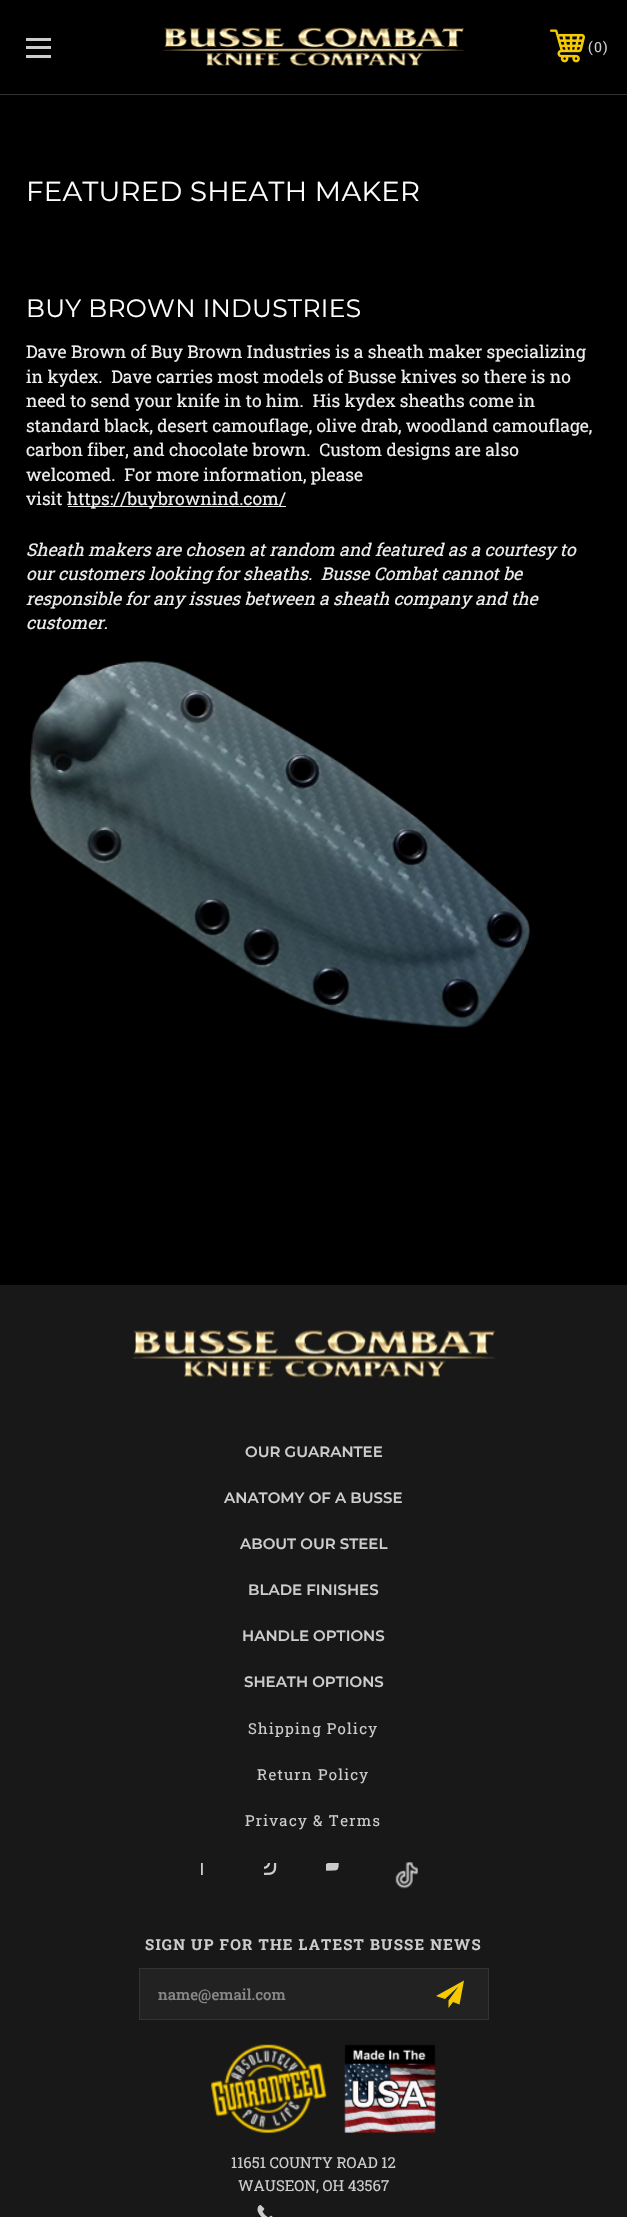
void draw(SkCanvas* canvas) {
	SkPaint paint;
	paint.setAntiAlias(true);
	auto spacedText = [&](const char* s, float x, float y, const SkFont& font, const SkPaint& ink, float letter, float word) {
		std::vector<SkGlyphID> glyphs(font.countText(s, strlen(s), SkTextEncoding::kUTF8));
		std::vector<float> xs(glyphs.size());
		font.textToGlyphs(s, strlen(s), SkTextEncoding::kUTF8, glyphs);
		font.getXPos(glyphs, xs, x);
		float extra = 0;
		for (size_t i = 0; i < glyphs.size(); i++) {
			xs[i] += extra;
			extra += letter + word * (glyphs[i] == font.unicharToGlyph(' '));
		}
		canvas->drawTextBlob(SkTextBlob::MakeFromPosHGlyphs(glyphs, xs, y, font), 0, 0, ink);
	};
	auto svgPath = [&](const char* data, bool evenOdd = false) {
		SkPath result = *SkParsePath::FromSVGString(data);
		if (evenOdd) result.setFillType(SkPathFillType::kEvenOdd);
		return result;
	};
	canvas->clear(0xff000000);
	paint.setColor(0xff333333);
	canvas->drawRect(SkRect::MakeXYWH(0, 94, 627, 1), paint);
	paint.setColor(0xffcccccc);
	canvas->drawRect(SkRect::MakeXYWH(26, 46, 25, 3), paint);
	canvas->drawRect(SkRect::MakeXYWH(26, 38, 25, 3), paint);
	canvas->drawRect(SkRect::MakeXYWH(26, 55, 25, 3), paint);
	canvas->drawImageRect(SkImages::DeferredFromEncodedData(SkData::MakeFromFileName("img1.png")), SkRect::MakeXYWH(162, 27, 303, 39), SkSamplingOptions());
	canvas->drawImageRect(SkImages::DeferredFromEncodedData(SkData::MakeFromFileName("img2.png")), SkRect::MakeXYWH(550, 29, 35, 34), SkSamplingOptions());
	SkFont f1(fontMgr->matchFamilyStyle("Roboto Slab", SkFontStyle::Normal()), 14);
	f1.setSubpixel(true);
	canvas->drawString("(", 588, 52, f1, paint);
	canvas->drawString("0", 594, 52, f1, paint);
	canvas->drawString(")", 603, 52, f1, paint);
	SkFont f2(fontMgr->matchFamilyStyle("Montserrat", SkFontStyle::Normal()), 27.5);
	f2.setSubpixel(true);
	paint.setColor(0xffffffff);
	spacedText("FEATURED SHEATH MAKER", 26, 201, f2, paint, 0.3, 0);
	SkFont f3(fontMgr->matchFamilyStyle("Montserrat", SkFontStyle::Normal()), 25);
	f3.setSubpixel(true);
	spacedText("BUY BROWN INDUSTRIES", 26, 317, f3, paint, 0.3, 0);
	SkFont f4(fontMgr->matchFamilyStyle("Roboto Slab", SkFontStyle::Normal()), 17.5);
	f4.setSubpixel(true);
	paint.setColor(0xffeeeeee);
	canvas->drawString("Dave Brown of Buy Brown Industries is a sheath maker specializing", 26, 358, f4, paint);
	canvas->drawString("in kydex.  Dave carries most models of Busse knives so there is no", 26, 383, f4, paint);
	canvas->drawString("need to send your knife in to him.  His kydex sheaths come in", 26, 407, f4, paint);
	canvas->drawString("standard black, desert camouflage, olive drab, woodland camouflage,", 26, 432, f4, paint);
	canvas->drawString("carbon fiber, and chocolate brown.  Custom designs are also", 26, 456, f4, paint);
	canvas->drawString("welcomed.  For more information, please", 26, 481, f4, paint);
	canvas->drawString("visit", 26, 505, f4, paint);
	canvas->drawRect(SkRect::MakeXYWH(68, 506, 218, 1), paint);
	canvas->drawString("https://buybrownind.com/", 67, 505, f4, paint);
	SkFont f5(fontMgr->matchFamilyStyle("Roboto Slab", SkFontStyle::Italic()), 17.5);
	f5.setSubpixel(true);
	canvas->drawString("Sheath makers are chosen at random and featured as a courtesy to", 26, 556, f5, paint);
	canvas->drawString("our customers looking for sheaths.  Busse Combat cannot be", 26, 580, f5, paint);
	canvas->drawString("responsible for any issues between a sheath company and the", 26, 605, f5, paint);
	canvas->drawString("customer.", 26, 629, f5, paint);
	canvas->drawImageRect(SkImages::DeferredFromEncodedData(SkData::MakeFromFileName("img3.png")), SkRect::MakeXYWH(30, 661, 500, 367), SkSamplingOptions());
	paint.setColor(0xff181818);
	canvas->drawRect(SkRect::MakeXYWH(0, 1285, 627, 932), paint);
	canvas->drawImageRect(SkImages::DeferredFromEncodedData(SkData::MakeFromFileName("img4.png")), SkRect::MakeXYWH(132, 1330, 364, 48), SkSamplingOptions());
	SkFont f6(fontMgr->matchFamilyStyle("Montserrat", SkFontStyle(600, SkFontStyle::kNormal_Width, SkFontStyle::kUpright_Slant)), 15);
	f6.setSubpixel(true);
	paint.setColor(0xffcccccc);
	canvas->drawString("OUR GUARANTEE", 245, 1457, f6, paint);
	canvas->drawString("ANATOMY OF A BUSSE", 224, 1503, f6, paint);
	canvas->drawString("ABOUT OUR STEEL", 240, 1549, f6, paint);
	canvas->drawString("BLADE FINISHES", 248, 1595, f6, paint);
	canvas->drawString("HANDLE OPTIONS", 242, 1641, f6, paint);
	canvas->drawString("SHEATH OPTIONS", 244, 1687, f6, paint);
	SkFont f7(fontMgr->matchFamilyStyle("Roboto Slab", SkFontStyle::Normal()), 15);
	f7.setSubpixel(true);
	spacedText("Shipping Policy", 248, 1734, f7, paint, 1.25, 0);
	spacedText("Return Policy", 257, 1780, f7, paint, 1.25, 0);
	spacedText("Privacy & Terms", 245, 1826, f7, paint, 1.25, 0);
	canvas->drawImageRect(SkImages::DeferredFromEncodedData(SkData::MakeFromFileName("img5.png")), SkRect::MakeXYWH(201, 1863, 2, 12), SkSamplingOptions());
	canvas->drawImageRect(SkImages::DeferredFromEncodedData(SkData::MakeFromFileName("img6.png")), SkRect::MakeXYWH(264, 1863, 13, 12), SkSamplingOptions());
	canvas->drawImageRect(SkImages::DeferredFromEncodedData(SkData::MakeFromFileName("img7.png")), SkRect::MakeXYWH(326, 1863, 13, 8), SkSamplingOptions());
	canvas->drawImageRect(SkImages::DeferredFromEncodedData(SkData::MakeFromFileName("img8.png")), SkRect::MakeXYWH(395, 1862, 23, 27), SkSamplingOptions());
	SkFont f8(fontMgr->matchFamilyStyle("Roboto Slab", SkFontStyle::Bold()), 15);
	f8.setSubpixel(true);
	spacedText("SIGN UP FOR THE LATEST BUSSE NEWS", 145, 1950, f8, paint, 1.25, 0);
	paint.setColor(0xff222222);
	canvas->drawRect(SkRect::MakeXYWH(139.5, 1968.5, 349, 51), paint);
	paint.setStroke(true);
	paint.setStrokeWidth(1);
	paint.setColor(0xff333333);
	canvas->drawRect(SkRect::MakeXYWH(139.5, 1968.5, 349, 51), paint);
	SkFont f9(fontMgr->matchFamilyStyle("Roboto Slab", SkFontStyle(500, SkFontStyle::kNormal_Width, SkFontStyle::kUpright_Slant)), 15);
	f9.setSubpixel(true);
	paint.setStroke(false);
	paint.setColor(0xff888888);
	canvas->drawString("name@email.com", 158, 2000, f9, paint);
	paint.setColor(0xfff5ca01);
	canvas->drawPath(svgPath("M464 1980.5L436 1996L445 1999L458.5 1986.5L448.5 2000.5V2008L453 2002L459.5 2004.5Z"), paint);
	canvas->drawImageRect(SkImages::DeferredFromEncodedData(SkData::MakeFromFileName("img9.png")), SkRect::MakeXYWH(211, 2044, 116, 89), SkSamplingOptions());
	canvas->drawImageRect(SkImages::DeferredFromEncodedData(SkData::MakeFromFileName("img10.png")), SkRect::MakeXYWH(344, 2044, 92, 89), SkSamplingOptions());
	paint.setColor(0xffcccccc);
	canvas->drawString("11651 COUNTY ROAD 12", 231, 2168, f7, paint);
	canvas->drawString("WAUSEON, OH 43567", 238, 2191, f7, paint);
	canvas->drawImageRect(SkImages::DeferredFromEncodedData(SkData::MakeFromFileName("img11.png")), SkRect::MakeXYWH(257, 2205, 16, 12), SkSamplingOptions());
}
